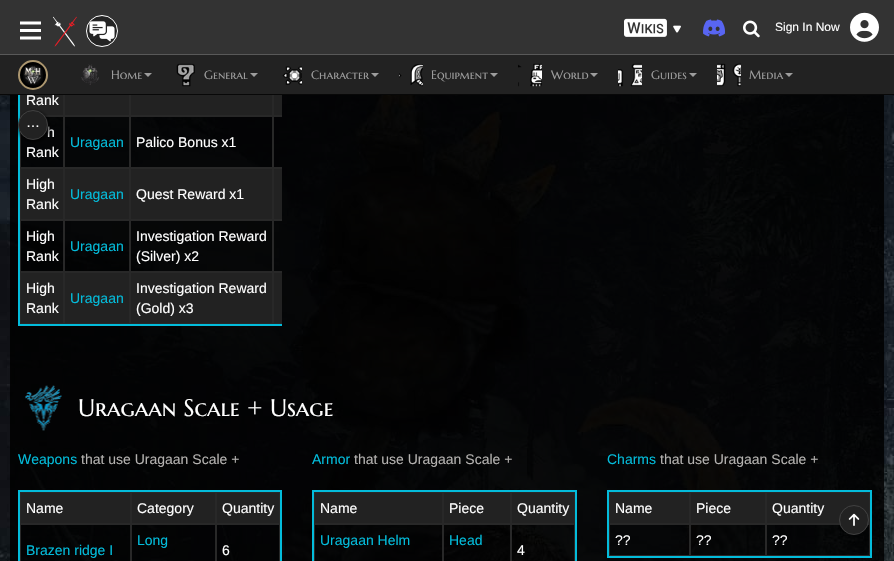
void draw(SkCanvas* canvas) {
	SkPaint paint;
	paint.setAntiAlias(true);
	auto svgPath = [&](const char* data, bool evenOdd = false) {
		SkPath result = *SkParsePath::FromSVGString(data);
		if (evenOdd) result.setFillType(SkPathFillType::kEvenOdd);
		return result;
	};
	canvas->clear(0xffffffff);
	canvas->drawImageRect(SkImages::DeferredFromEncodedData(SkData::MakeFromFileName("img18.png")), SkRect::MakeXYWH(0, 95, 894, 466), SkSamplingOptions());
	canvas->save();
	canvas->clipRect(SkRect::MakeXYWH(18, 0, 264, 336));
	paint.setStroke(true);
	paint.setStrokeWidth(2);
	paint.setColor(0xff03bcdb);
	canvas->drawRect(SkRect::MakeXYWH(19, -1, 315, 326), paint);
	canvas->restore();
	paint.setStroke(false);
	paint.setColor(0xff333333);
	canvas->drawRect(SkRect::MakeXYWH(0, 0, 894, 54), paint);
	paint.setColor(0xff595959);
	canvas->drawRect(SkRect::MakeXYWH(0, 54, 894, 1), paint);
	canvas->drawImageRect(SkImages::DeferredFromEncodedData(SkData::MakeFromFileName("img1.png")), SkRect::MakeXYWH(20, 21, 21, 19), SkSamplingOptions());
	canvas->drawImageRect(SkImages::DeferredFromEncodedData(SkData::MakeFromFileName("img2.png")), SkRect::MakeXYWH(53, 16, 24, 31), SkSamplingOptions());
	paint.setColor(0xff242424);
	canvas->drawCircle(102, 31, 15.5, paint);
	paint.setStroke(true);
	paint.setStrokeWidth(1);
	paint.setColor(0xffffffff);
	canvas->drawCircle(102, 31, 15.5, paint);
	canvas->drawImageRect(SkImages::DeferredFromEncodedData(SkData::MakeFromFileName("img3.png")), SkRect::MakeXYWH(89, 21, 26, 21), SkSamplingOptions());
	canvas->drawImageRect(SkImages::DeferredFromEncodedData(SkData::MakeFromFileName("img4.png")), SkRect::MakeXYWH(624, 18, 57, 19), SkSamplingOptions());
	canvas->drawImageRect(SkImages::DeferredFromEncodedData(SkData::MakeFromFileName("img5.png")), SkRect::MakeXYWH(703, 19, 22, 18), SkSamplingOptions());
	canvas->drawImageRect(SkImages::DeferredFromEncodedData(SkData::MakeFromFileName("img6.png")), SkRect::MakeXYWH(743, 20, 17, 18), SkSamplingOptions());
	SkFont f1(fontMgr->matchFamilyStyle("Liberation Sans", SkFontStyle::Normal()), 12);
	f1.setSubpixel(true);
	paint.setStroke(false);
	canvas->drawString("Sign In Now", 775, 31, f1, paint);
	canvas->drawImageRect(SkImages::DeferredFromEncodedData(SkData::MakeFromFileName("img7.png")), SkRect::MakeXYWH(850, 12, 29, 30), SkSamplingOptions());
	paint.setColor(0xff222222);
	canvas->drawRect(SkRect::MakeXYWH(21, 95, 261, 20), paint);
	paint.setStroke(true);
	paint.setColor(0xff282828);
	canvas->drawRect(SkRect::MakeXYWH(20.5, 64.5, 43, 51), paint);
	canvas->drawRect(SkRect::MakeXYWH(64.5, 64.5, 65, 51), paint);
	canvas->drawRect(SkRect::MakeXYWH(130.5, 64.5, 142, 51), paint);
	canvas->save();
	canvas->clipRect(SkRect::MakeXYWH(18, 0, 264, 336));
	canvas->drawRect(SkRect::MakeXYWH(273.5, 64.5, 59, 51), paint);
	canvas->restore();
	paint.setStroke(false);
	paint.setColor(0xff222222);
	canvas->drawRect(SkRect::MakeXYWH(0, 55, 894, 39), paint);
	SkFont f2(fontMgr->matchFamilyStyle("Liberation Sans", SkFontStyle::Normal()), 14);
	f2.setSubpixel(true);
	paint.setColor(0xffffffff);
	canvas->drawString("Rank", 26, 105, f2, paint);
	paint.setColor(0xff080808);
	canvas->drawRect(SkRect::MakeXYWH(0, 94, 894, 1), paint);
	canvas->drawImageRect(SkImages::DeferredFromEncodedData(SkData::MakeFromFileName("img8.png")), SkRect::MakeXYWH(20, 62, 26, 26), SkSamplingOptions());
	paint.setStroke(true);
	paint.setStrokeWidth(2);
	paint.setColor(0xffab966f);
	canvas->drawCircle(33, 75, 14, paint);
	canvas->drawImageRect(SkImages::DeferredFromEncodedData(SkData::MakeFromFileName("img9.png")), SkRect::MakeXYWH(81, 64, 18, 21), SkSamplingOptions());
	SkFont f3(fontMgr->matchFamilyStyle("Marcellus SC", SkFontStyle::Normal()), 12);
	f3.setSubpixel(true);
	paint.setStroke(false);
	paint.setColor(0xff9d9d9d);
	canvas->drawString("Home", 111, 79, f3, paint);
	canvas->drawPath(svgPath("M144 73H152L148 77Z"), paint);
	canvas->drawImageRect(SkImages::DeferredFromEncodedData(SkData::MakeFromFileName("img10.png")), SkRect::MakeXYWH(176, 63, 19, 24), SkSamplingOptions());
	canvas->drawString("General", 204, 79, f3, paint);
	canvas->drawPath(svgPath("M250 73H258L254 77Z"), paint);
	canvas->drawImageRect(SkImages::DeferredFromEncodedData(SkData::MakeFromFileName("img11.png")), SkRect::MakeXYWH(282, 66, 20, 19), SkSamplingOptions());
	canvas->drawString("Character", 311, 79, f3, paint);
	canvas->drawPath(svgPath("M371 73H379L375 77Z"), paint);
	canvas->drawImageRect(SkImages::DeferredFromEncodedData(SkData::MakeFromFileName("img12.png")), SkRect::MakeXYWH(399, 64, 24, 23), SkSamplingOptions());
	canvas->drawString("Equipment", 431, 79, f3, paint);
	canvas->drawPath(svgPath("M490 73H498L494 77Z"), paint);
	canvas->drawImageRect(SkImages::DeferredFromEncodedData(SkData::MakeFromFileName("img13.png")), SkRect::MakeXYWH(518, 63, 24, 24), SkSamplingOptions());
	canvas->drawString("World", 551, 79, f3, paint);
	canvas->drawPath(svgPath("M590 73H598L594 77Z"), paint);
	canvas->drawImageRect(SkImages::DeferredFromEncodedData(SkData::MakeFromFileName("img14.png")), SkRect::MakeXYWH(618, 63, 24, 24), SkSamplingOptions());
	canvas->drawString("Guides", 651, 79, f3, paint);
	canvas->drawPath(svgPath("M689 73H697L693 77Z"), paint);
	canvas->drawImageRect(SkImages::DeferredFromEncodedData(SkData::MakeFromFileName("img15.png")), SkRect::MakeXYWH(717, 63, 24, 24), SkSamplingOptions());
	canvas->drawString("Media", 749, 79, f3, paint);
	canvas->drawPath(svgPath("M785 73H793L789 77Z"), paint);
	paint.setStroke(true);
	paint.setStrokeWidth(1);
	paint.setColor(0xff282828);
	canvas->drawRect(SkRect::MakeXYWH(20.5, 116.5, 43, 51), paint);
	paint.setStroke(false);
	paint.setColor(0xffffffff);
	canvas->drawString("h", 47, 137, f2, paint);
	canvas->drawString("Rank", 26, 157, f2, paint);
	paint.setStroke(true);
	paint.setColor(0xff282828);
	canvas->drawRect(SkRect::MakeXYWH(64.5, 116.5, 65, 51), paint);
	paint.setStroke(false);
	paint.setColor(0xff03bcdb);
	canvas->drawString("Uragaan", 70, 147, f2, paint);
	paint.setStroke(true);
	paint.setColor(0xff282828);
	canvas->drawRect(SkRect::MakeXYWH(130.5, 116.5, 142, 51), paint);
	paint.setStroke(false);
	paint.setColor(0xffffffff);
	canvas->drawString("Palico Bonus x1", 136, 147, f2, paint);
	canvas->save();
	canvas->clipRect(SkRect::MakeXYWH(18, 0, 264, 336));
	paint.setStroke(true);
	paint.setColor(0xff282828);
	canvas->drawRect(SkRect::MakeXYWH(273.5, 116.5, 59, 51), paint);
	canvas->restore();
	paint.setStroke(false);
	paint.setColor(0xff222222);
	canvas->drawRect(SkRect::MakeXYWH(21, 169, 261, 50), paint);
	paint.setStroke(true);
	paint.setColor(0xff282828);
	canvas->drawRect(SkRect::MakeXYWH(20.5, 168.5, 43, 51), paint);
	paint.setStroke(false);
	paint.setColor(0xffffffff);
	canvas->drawString("High", 26, 189, f2, paint);
	canvas->drawString("Rank", 26, 209, f2, paint);
	paint.setStroke(true);
	paint.setColor(0xff282828);
	canvas->drawRect(SkRect::MakeXYWH(64.5, 168.5, 65, 51), paint);
	paint.setStroke(false);
	paint.setColor(0xff03bcdb);
	canvas->drawString("Uragaan", 70, 199, f2, paint);
	paint.setStroke(true);
	paint.setColor(0xff282828);
	canvas->drawRect(SkRect::MakeXYWH(130.5, 168.5, 142, 51), paint);
	paint.setStroke(false);
	paint.setColor(0xffffffff);
	canvas->drawString("Quest Reward x1", 136, 199, f2, paint);
	canvas->save();
	canvas->clipRect(SkRect::MakeXYWH(18, 0, 264, 336));
	paint.setStroke(true);
	paint.setColor(0xff282828);
	canvas->drawRect(SkRect::MakeXYWH(273.5, 168.5, 59, 51), paint);
	canvas->restore();
	canvas->drawRect(SkRect::MakeXYWH(20.5, 220.5, 43, 51), paint);
	paint.setStroke(false);
	paint.setColor(0xffffffff);
	canvas->drawString("High", 26, 241, f2, paint);
	canvas->drawString("Rank", 26, 261, f2, paint);
	paint.setStroke(true);
	paint.setColor(0xff282828);
	canvas->drawRect(SkRect::MakeXYWH(64.5, 220.5, 65, 51), paint);
	paint.setStroke(false);
	paint.setColor(0xff03bcdb);
	canvas->drawString("Uragaan", 70, 251, f2, paint);
	paint.setStroke(true);
	paint.setColor(0xff282828);
	canvas->drawRect(SkRect::MakeXYWH(130.5, 220.5, 142, 51), paint);
	paint.setStroke(false);
	paint.setColor(0xffffffff);
	canvas->drawString("Investigation Reward", 136, 241, f2, paint);
	canvas->drawString("(Silver) x2", 136, 261, f2, paint);
	canvas->save();
	canvas->clipRect(SkRect::MakeXYWH(18, 0, 264, 336));
	paint.setStroke(true);
	paint.setColor(0xff282828);
	canvas->drawRect(SkRect::MakeXYWH(273.5, 220.5, 59, 51), paint);
	canvas->restore();
	paint.setStroke(false);
	paint.setColor(0xff222222);
	canvas->drawRect(SkRect::MakeXYWH(21, 273, 261, 50), paint);
	paint.setStroke(true);
	paint.setColor(0xff282828);
	canvas->drawRect(SkRect::MakeXYWH(20.5, 272.5, 43, 51), paint);
	paint.setStroke(false);
	paint.setColor(0xffffffff);
	canvas->drawString("High", 26, 293, f2, paint);
	canvas->drawString("Rank", 26, 313, f2, paint);
	paint.setStroke(true);
	paint.setColor(0xff282828);
	canvas->drawRect(SkRect::MakeXYWH(64.5, 272.5, 65, 51), paint);
	paint.setStroke(false);
	paint.setColor(0xff03bcdb);
	canvas->drawString("Uragaan", 70, 303, f2, paint);
	paint.setStroke(true);
	paint.setColor(0xff282828);
	canvas->drawRect(SkRect::MakeXYWH(130.5, 272.5, 142, 51), paint);
	paint.setStroke(false);
	paint.setColor(0xffffffff);
	canvas->drawString("Investigation Reward", 136, 293, f2, paint);
	canvas->drawString("(Gold) x3", 136, 313, f2, paint);
	canvas->save();
	canvas->clipRect(SkRect::MakeXYWH(18, 0, 264, 336));
	paint.setStroke(true);
	paint.setColor(0xff282828);
	canvas->drawRect(SkRect::MakeXYWH(273.5, 272.5, 59, 51), paint);
	canvas->restore();
	canvas->drawImageRect(SkImages::DeferredFromEncodedData(SkData::MakeFromFileName("img16.png")), SkRect::MakeXYWH(25, 385, 37, 46), SkSamplingOptions());
	SkFont f4(fontMgr->matchFamilyStyle("Marcellus SC", SkFontStyle::Normal()), 24);
	f4.setSubpixel(true);
	paint.setStroke(false);
	paint.setColor(0xffffffff);
	canvas->drawString("Uragaan Scale + Usage", 78, 416, f4, paint);
	paint.setColor(0xff03bcdb);
	canvas->drawString("Weapons", 18, 464, f2, paint);
	paint.setColor(0xffb4b2b0);
	canvas->drawString("that use Uragaan Scale +", 81, 464, f2, paint);
	paint.setStroke(true);
	paint.setStrokeWidth(2);
	paint.setColor(0xff03bcdb);
	canvas->drawRect(SkRect::MakeXYWH(19, 491, 262, 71), paint);
	paint.setStroke(false);
	paint.setColor(0xff222222);
	canvas->drawRect(SkRect::MakeXYWH(21, 493, 258, 30), paint);
	paint.setStroke(true);
	paint.setStrokeWidth(1);
	paint.setColor(0xff282828);
	canvas->drawRect(SkRect::MakeXYWH(20.5, 492.5, 110, 31), paint);
	paint.setStroke(false);
	paint.setColor(0xffffffff);
	canvas->drawString("Name", 26, 513, f2, paint);
	paint.setStroke(true);
	paint.setColor(0xff282828);
	canvas->drawRect(SkRect::MakeXYWH(131.5, 492.5, 84, 31), paint);
	paint.setStroke(false);
	paint.setColor(0xffffffff);
	canvas->drawString("Category", 137, 513, f2, paint);
	paint.setStroke(true);
	paint.setColor(0xff282828);
	canvas->drawRect(SkRect::MakeXYWH(216.5, 492.5, 63, 31), paint);
	paint.setStroke(false);
	paint.setColor(0xffffffff);
	canvas->drawString("Quantity", 222, 513, f2, paint);
	paint.setStroke(true);
	paint.setColor(0xff282828);
	canvas->drawRect(SkRect::MakeXYWH(131.5, 524.5, 84, 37), paint);
	paint.setStroke(false);
	paint.setColor(0xff03bcdb);
	canvas->drawString("Long", 137, 545, f2, paint);
	paint.setStroke(true);
	paint.setColor(0xff282828);
	canvas->drawRect(SkRect::MakeXYWH(20.5, 524.5, 110, 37), paint);
	paint.setStroke(false);
	paint.setColor(0xff03bcdb);
	canvas->drawString("Brazen ridge I", 26, 555, f2, paint);
	paint.setStroke(true);
	paint.setColor(0xff282828);
	canvas->drawRect(SkRect::MakeXYWH(216.5, 524.5, 63, 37), paint);
	paint.setStroke(false);
	paint.setColor(0xffffffff);
	canvas->drawString("6", 222, 555, f2, paint);
	paint.setColor(0xff03bcdb);
	canvas->drawString("Armor", 312, 464, f2, paint);
	paint.setColor(0xffb4b2b0);
	canvas->drawString("that use Uragaan Scale +", 354, 464, f2, paint);
	paint.setStroke(true);
	paint.setStrokeWidth(2);
	paint.setColor(0xff03bcdb);
	canvas->drawRect(SkRect::MakeXYWH(313, 491, 263, 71), paint);
	paint.setStroke(false);
	paint.setColor(0xff222222);
	canvas->drawRect(SkRect::MakeXYWH(315, 493, 259, 30), paint);
	paint.setStroke(true);
	paint.setStrokeWidth(1);
	paint.setColor(0xff282828);
	canvas->drawRect(SkRect::MakeXYWH(314.5, 492.5, 128, 31), paint);
	paint.setStroke(false);
	paint.setColor(0xffffffff);
	canvas->drawString("Name", 320, 513, f2, paint);
	paint.setStroke(true);
	paint.setColor(0xff282828);
	canvas->drawRect(SkRect::MakeXYWH(443.5, 492.5, 67, 31), paint);
	paint.setStroke(false);
	paint.setColor(0xffffffff);
	canvas->drawString("Piece", 449, 513, f2, paint);
	paint.setStroke(true);
	paint.setColor(0xff282828);
	canvas->drawRect(SkRect::MakeXYWH(511.5, 492.5, 63, 31), paint);
	paint.setStroke(false);
	paint.setColor(0xffffffff);
	canvas->drawString("Quantity", 517, 513, f2, paint);
	paint.setStroke(true);
	paint.setColor(0xff282828);
	canvas->drawRect(SkRect::MakeXYWH(314.5, 524.5, 128, 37), paint);
	paint.setStroke(false);
	paint.setColor(0xff03bcdb);
	canvas->drawString("Uragaan Helm", 320, 545, f2, paint);
	paint.setStroke(true);
	paint.setColor(0xff282828);
	canvas->drawRect(SkRect::MakeXYWH(443.5, 524.5, 67, 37), paint);
	paint.setStroke(false);
	paint.setColor(0xff03bcdb);
	canvas->drawString("Head", 449, 545, f2, paint);
	paint.setStroke(true);
	paint.setColor(0xff282828);
	canvas->drawRect(SkRect::MakeXYWH(511.5, 524.5, 63, 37), paint);
	paint.setStroke(false);
	paint.setColor(0xffffffff);
	canvas->drawString("4", 517, 555, f2, paint);
	paint.setColor(0xff03bcdb);
	canvas->drawString("Charms", 607, 464, f2, paint);
	paint.setColor(0xffb4b2b0);
	canvas->drawString("that use Uragaan Scale +", 660, 464, f2, paint);
	paint.setStroke(true);
	paint.setStrokeWidth(2);
	paint.setColor(0xff03bcdb);
	canvas->drawRect(SkRect::MakeXYWH(608, 491, 263, 66), paint);
	paint.setStroke(false);
	paint.setColor(0xff222222);
	canvas->drawRect(SkRect::MakeXYWH(610, 493, 259, 30), paint);
	paint.setStroke(true);
	paint.setStrokeWidth(1);
	paint.setColor(0xff282828);
	canvas->drawRect(SkRect::MakeXYWH(609.5, 492.5, 80, 31), paint);
	paint.setStroke(false);
	paint.setColor(0xffffffff);
	canvas->drawString("Name", 615, 513, f2, paint);
	paint.setStroke(true);
	paint.setColor(0xff282828);
	canvas->drawRect(SkRect::MakeXYWH(690.5, 492.5, 75, 31), paint);
	paint.setStroke(false);
	paint.setColor(0xffffffff);
	canvas->drawString("Piece", 696, 513, f2, paint);
	paint.setStroke(true);
	paint.setColor(0xff282828);
	canvas->drawRect(SkRect::MakeXYWH(766.5, 492.5, 103, 31), paint);
	paint.setStroke(false);
	paint.setColor(0xffffffff);
	canvas->drawString("Quantity", 772, 513, f2, paint);
	paint.setStroke(true);
	paint.setColor(0xff282828);
	canvas->drawRect(SkRect::MakeXYWH(609.5, 524.5, 80, 31), paint);
	paint.setStroke(false);
	paint.setColor(0xffffffff);
	canvas->drawString("?\077", 615, 545, f2, paint);
	paint.setStroke(true);
	paint.setColor(0xff282828);
	canvas->drawRect(SkRect::MakeXYWH(690.5, 524.5, 75, 31), paint);
	paint.setStroke(false);
	paint.setColor(0xffffffff);
	canvas->drawString("?\077", 696, 545, f2, paint);
	paint.setStroke(true);
	paint.setColor(0xff282828);
	canvas->drawRect(SkRect::MakeXYWH(766.5, 524.5, 103, 31), paint);
	paint.setStroke(false);
	paint.setColor(0xffffffff);
	canvas->drawString("?\077", 772, 545, f2, paint);
	paint.setColor(0xff222222);
	canvas->drawCircle(854, 520, 14.5, paint);
	paint.setStroke(true);
	paint.setColor(0xff404040);
	canvas->drawCircle(854, 520, 14.5, paint);
	canvas->drawImageRect(SkImages::DeferredFromEncodedData(SkData::MakeFromFileName("img17.png")), SkRect::MakeXYWH(848, 513, 12, 13), SkSamplingOptions());
	paint.setStroke(false);
	paint.setColor(0xff000000);
	paint.setMaskFilter(SkMaskFilter::MakeBlur(kNormal_SkBlurStyle, 2));
	canvas->drawRoundRect(SkRect::MakeXYWH(19, 112, 30, 30), 15, 15, paint);
	paint.setMaskFilter(nullptr);
	paint.setColor(0xff222222);
	canvas->drawCircle(33, 125, 14.5, paint);
	paint.setStroke(true);
	paint.setColor(0xff404040);
	canvas->drawCircle(33, 125, 14.5, paint);
	paint.setStroke(false);
	paint.setColor(0xffffffff);
	canvas->drawString("…", 26, 127, f2, paint);
}
